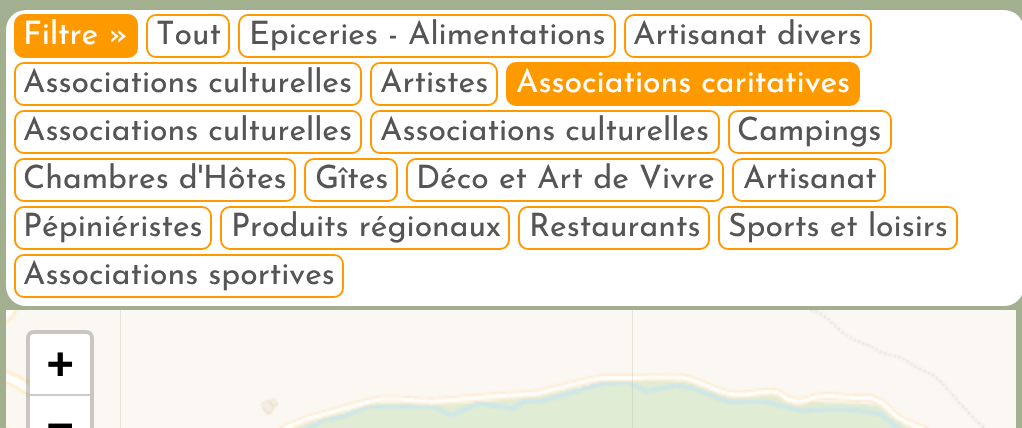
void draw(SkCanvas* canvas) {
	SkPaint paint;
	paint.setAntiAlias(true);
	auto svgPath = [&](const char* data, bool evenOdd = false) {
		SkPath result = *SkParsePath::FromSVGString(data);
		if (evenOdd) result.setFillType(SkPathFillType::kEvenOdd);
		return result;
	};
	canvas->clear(0xffa2b08f);
	paint.setColor(0xffffffff);
	canvas->drawRoundRect(SkRect::MakeXYWH(6, 10, 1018, 296), 20, 20, paint);
	paint.setColor(0xffff9900);
	canvas->drawRoundRect(SkRect::MakeXYWH(15, 15, 122, 42), 9, 9, paint);
	paint.setStroke(true);
	paint.setStrokeWidth(2);
	canvas->drawRoundRect(SkRect::MakeXYWH(15, 15, 122, 42), 9, 9, paint);
	SkFont f1(fontMgr->matchFamilyStyle("Josefin Sans", SkFontStyle(100, SkFontStyle::kNormal_Width, SkFontStyle::kUpright_Slant)), 32);
	f1.setSubpixel(true);
	paint.setStroke(false);
	paint.setColor(0xffffffff);
	canvas->drawString("Filtre »", 23, 44, f1, paint);
	paint.setStroke(true);
	paint.setColor(0xffff9900);
	canvas->drawRoundRect(SkRect::MakeXYWH(147, 15, 82, 42), 9, 9, paint);
	paint.setStroke(false);
	paint.setColor(0xff555555);
	canvas->drawString("Tout", 156, 44, f1, paint);
	paint.setStroke(true);
	paint.setColor(0xffff9900);
	canvas->drawRoundRect(SkRect::MakeXYWH(239, 15, 376, 42), 9, 9, paint);
	paint.setStroke(false);
	paint.setColor(0xff555555);
	canvas->drawString("Epiceries - Alimentations", 249, 44, f1, paint);
	paint.setStroke(true);
	paint.setColor(0xffff9900);
	canvas->drawRoundRect(SkRect::MakeXYWH(625, 15, 246, 42), 9, 9, paint);
	paint.setStroke(false);
	paint.setColor(0xff555555);
	canvas->drawString("Artisanat divers", 633, 44, f1, paint);
	paint.setStroke(true);
	paint.setColor(0xffff9900);
	canvas->drawRoundRect(SkRect::MakeXYWH(15, 63, 346, 42), 9, 9, paint);
	paint.setStroke(false);
	paint.setColor(0xff555555);
	canvas->drawString("Associations culturelles", 23, 92, f1, paint);
	paint.setStroke(true);
	paint.setColor(0xffff9900);
	canvas->drawRoundRect(SkRect::MakeXYWH(371, 63, 126, 42), 9, 9, paint);
	paint.setStroke(false);
	paint.setColor(0xff555555);
	canvas->drawString("Artistes", 380, 92, f1, paint);
	paint.setColor(0xffff9900);
	canvas->drawRoundRect(SkRect::MakeXYWH(507, 63, 352, 42), 9, 9, paint);
	paint.setStroke(true);
	canvas->drawRoundRect(SkRect::MakeXYWH(507, 63, 352, 42), 9, 9, paint);
	paint.setStroke(false);
	paint.setColor(0xffffffff);
	canvas->drawString("Associations caritatives", 516, 92, f1, paint);
	paint.setStroke(true);
	paint.setColor(0xffff9900);
	canvas->drawRoundRect(SkRect::MakeXYWH(15, 111, 346, 42), 9, 9, paint);
	paint.setStroke(false);
	paint.setColor(0xff555555);
	canvas->drawString("Associations culturelles", 23, 140, f1, paint);
	paint.setStroke(true);
	paint.setColor(0xffff9900);
	canvas->drawRoundRect(SkRect::MakeXYWH(371, 111, 348, 42), 9, 9, paint);
	paint.setStroke(false);
	paint.setColor(0xff555555);
	canvas->drawString("Associations culturelles", 380, 140, f1, paint);
	paint.setStroke(true);
	paint.setColor(0xffff9900);
	canvas->drawRoundRect(SkRect::MakeXYWH(729, 111, 162, 42), 9, 9, paint);
	paint.setStroke(false);
	paint.setColor(0xff555555);
	canvas->drawString("Campings", 737, 140, f1, paint);
	paint.setStroke(true);
	paint.setColor(0xffff9900);
	canvas->drawRoundRect(SkRect::MakeXYWH(15, 159, 280, 42), 9, 9, paint);
	paint.setStroke(false);
	paint.setColor(0xff555555);
	canvas->drawString("Chambres d'Hôtes", 23, 188, f1, paint);
	paint.setStroke(true);
	paint.setColor(0xffff9900);
	canvas->drawRoundRect(SkRect::MakeXYWH(305, 159, 92, 42), 9, 9, paint);
	paint.setStroke(false);
	paint.setColor(0xff555555);
	canvas->drawString("Gîtes", 315, 188, f1, paint);
	paint.setStroke(true);
	paint.setColor(0xffff9900);
	canvas->drawRoundRect(SkRect::MakeXYWH(407, 159, 316, 42), 9, 9, paint);
	paint.setStroke(false);
	paint.setColor(0xff555555);
	canvas->drawString("Déco et Art de Vivre", 416, 188, f1, paint);
	paint.setStroke(true);
	paint.setColor(0xffff9900);
	canvas->drawRoundRect(SkRect::MakeXYWH(733, 159, 152, 42), 9, 9, paint);
	paint.setStroke(false);
	paint.setColor(0xff555555);
	canvas->drawString("Artisanat", 743, 188, f1, paint);
	paint.setStroke(true);
	paint.setColor(0xffff9900);
	canvas->drawRoundRect(SkRect::MakeXYWH(15, 207, 196, 42), 9, 9, paint);
	paint.setStroke(false);
	paint.setColor(0xff555555);
	canvas->drawString("Pépiniéristes", 23, 236, f1, paint);
	paint.setStroke(true);
	paint.setColor(0xffff9900);
	canvas->drawRoundRect(SkRect::MakeXYWH(221, 207, 288, 42), 9, 9, paint);
	paint.setStroke(false);
	paint.setColor(0xff555555);
	canvas->drawString("Produits régionaux", 231, 236, f1, paint);
	paint.setStroke(true);
	paint.setColor(0xffff9900);
	canvas->drawRoundRect(SkRect::MakeXYWH(519, 207, 190, 42), 9, 9, paint);
	paint.setStroke(false);
	paint.setColor(0xff555555);
	canvas->drawString("Restaurants", 529, 236, f1, paint);
	paint.setStroke(true);
	paint.setColor(0xffff9900);
	canvas->drawRoundRect(SkRect::MakeXYWH(719, 207, 238, 42), 9, 9, paint);
	paint.setStroke(false);
	paint.setColor(0xff555555);
	canvas->drawString("Sports et loisirs", 728, 236, f1, paint);
	paint.setStroke(true);
	paint.setColor(0xffff9900);
	canvas->drawRoundRect(SkRect::MakeXYWH(15, 255, 328, 42), 9, 9, paint);
	paint.setStroke(false);
	paint.setColor(0xff555555);
	canvas->drawString("Associations sportives", 23, 284, f1, paint);
	canvas->drawImageRect(SkImages::DeferredFromEncodedData(SkData::MakeFromFileName("img1.png")), SkRect::MakeXYWH(6, 310, 114, 32), SkSamplingOptions());
	canvas->drawImageRect(SkImages::DeferredFromEncodedData(SkData::MakeFromFileName("img2.png")), SkRect::MakeXYWH(120, 310, 512, 32), SkSamplingOptions());
	canvas->drawImageRect(SkImages::DeferredFromEncodedData(SkData::MakeFromFileName("img3.png")), SkRect::MakeXYWH(632, 310, 384, 32), SkSamplingOptions());
	canvas->drawImageRect(SkImages::DeferredFromEncodedData(SkData::MakeFromFileName("img4.png")), SkRect::MakeXYWH(6, 342, 114, 86), SkSamplingOptions());
	canvas->drawImageRect(SkImages::DeferredFromEncodedData(SkData::MakeFromFileName("img5.png")), SkRect::MakeXYWH(120, 342, 512, 86), SkSamplingOptions());
	canvas->drawImageRect(SkImages::DeferredFromEncodedData(SkData::MakeFromFileName("img6.png")), SkRect::MakeXYWH(632, 342, 384, 86), SkSamplingOptions());
	paint.setStroke(true);
	paint.setStrokeWidth(4);
	paint.setColor(0x33000000);
	canvas->drawRoundRect(SkRect::MakeXYWH(28, 332, 64, 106), 6, 6, paint);
	paint.setStroke(false);
	paint.setColor(0xffffffff);
	canvas->drawPath(svgPath("M34 334H86C88 334 90 336 90 338V396H30V338C30 336 32 334 34 334Z"), paint);
	paint.setColor(0xffcccccc);
	canvas->drawRect(SkRect::MakeXYWH(30, 394, 60, 2), paint);
	SkFont f2(fontMgr->matchFamilyStyle("DejaVu Sans Mono", SkFontStyle::Bold()), 44);
	f2.setSubpixel(true);
	paint.setColor(0xff000000);
	canvas->drawString("+", 47, 378, f2, paint);
	paint.setColor(0xffffffff);
	canvas->drawRect(SkRect::MakeXYWH(30, 396, 60, 32), paint);
	paint.setColor(0xff000000);
	canvas->drawString("−", 47, 440, f2, paint);
}
